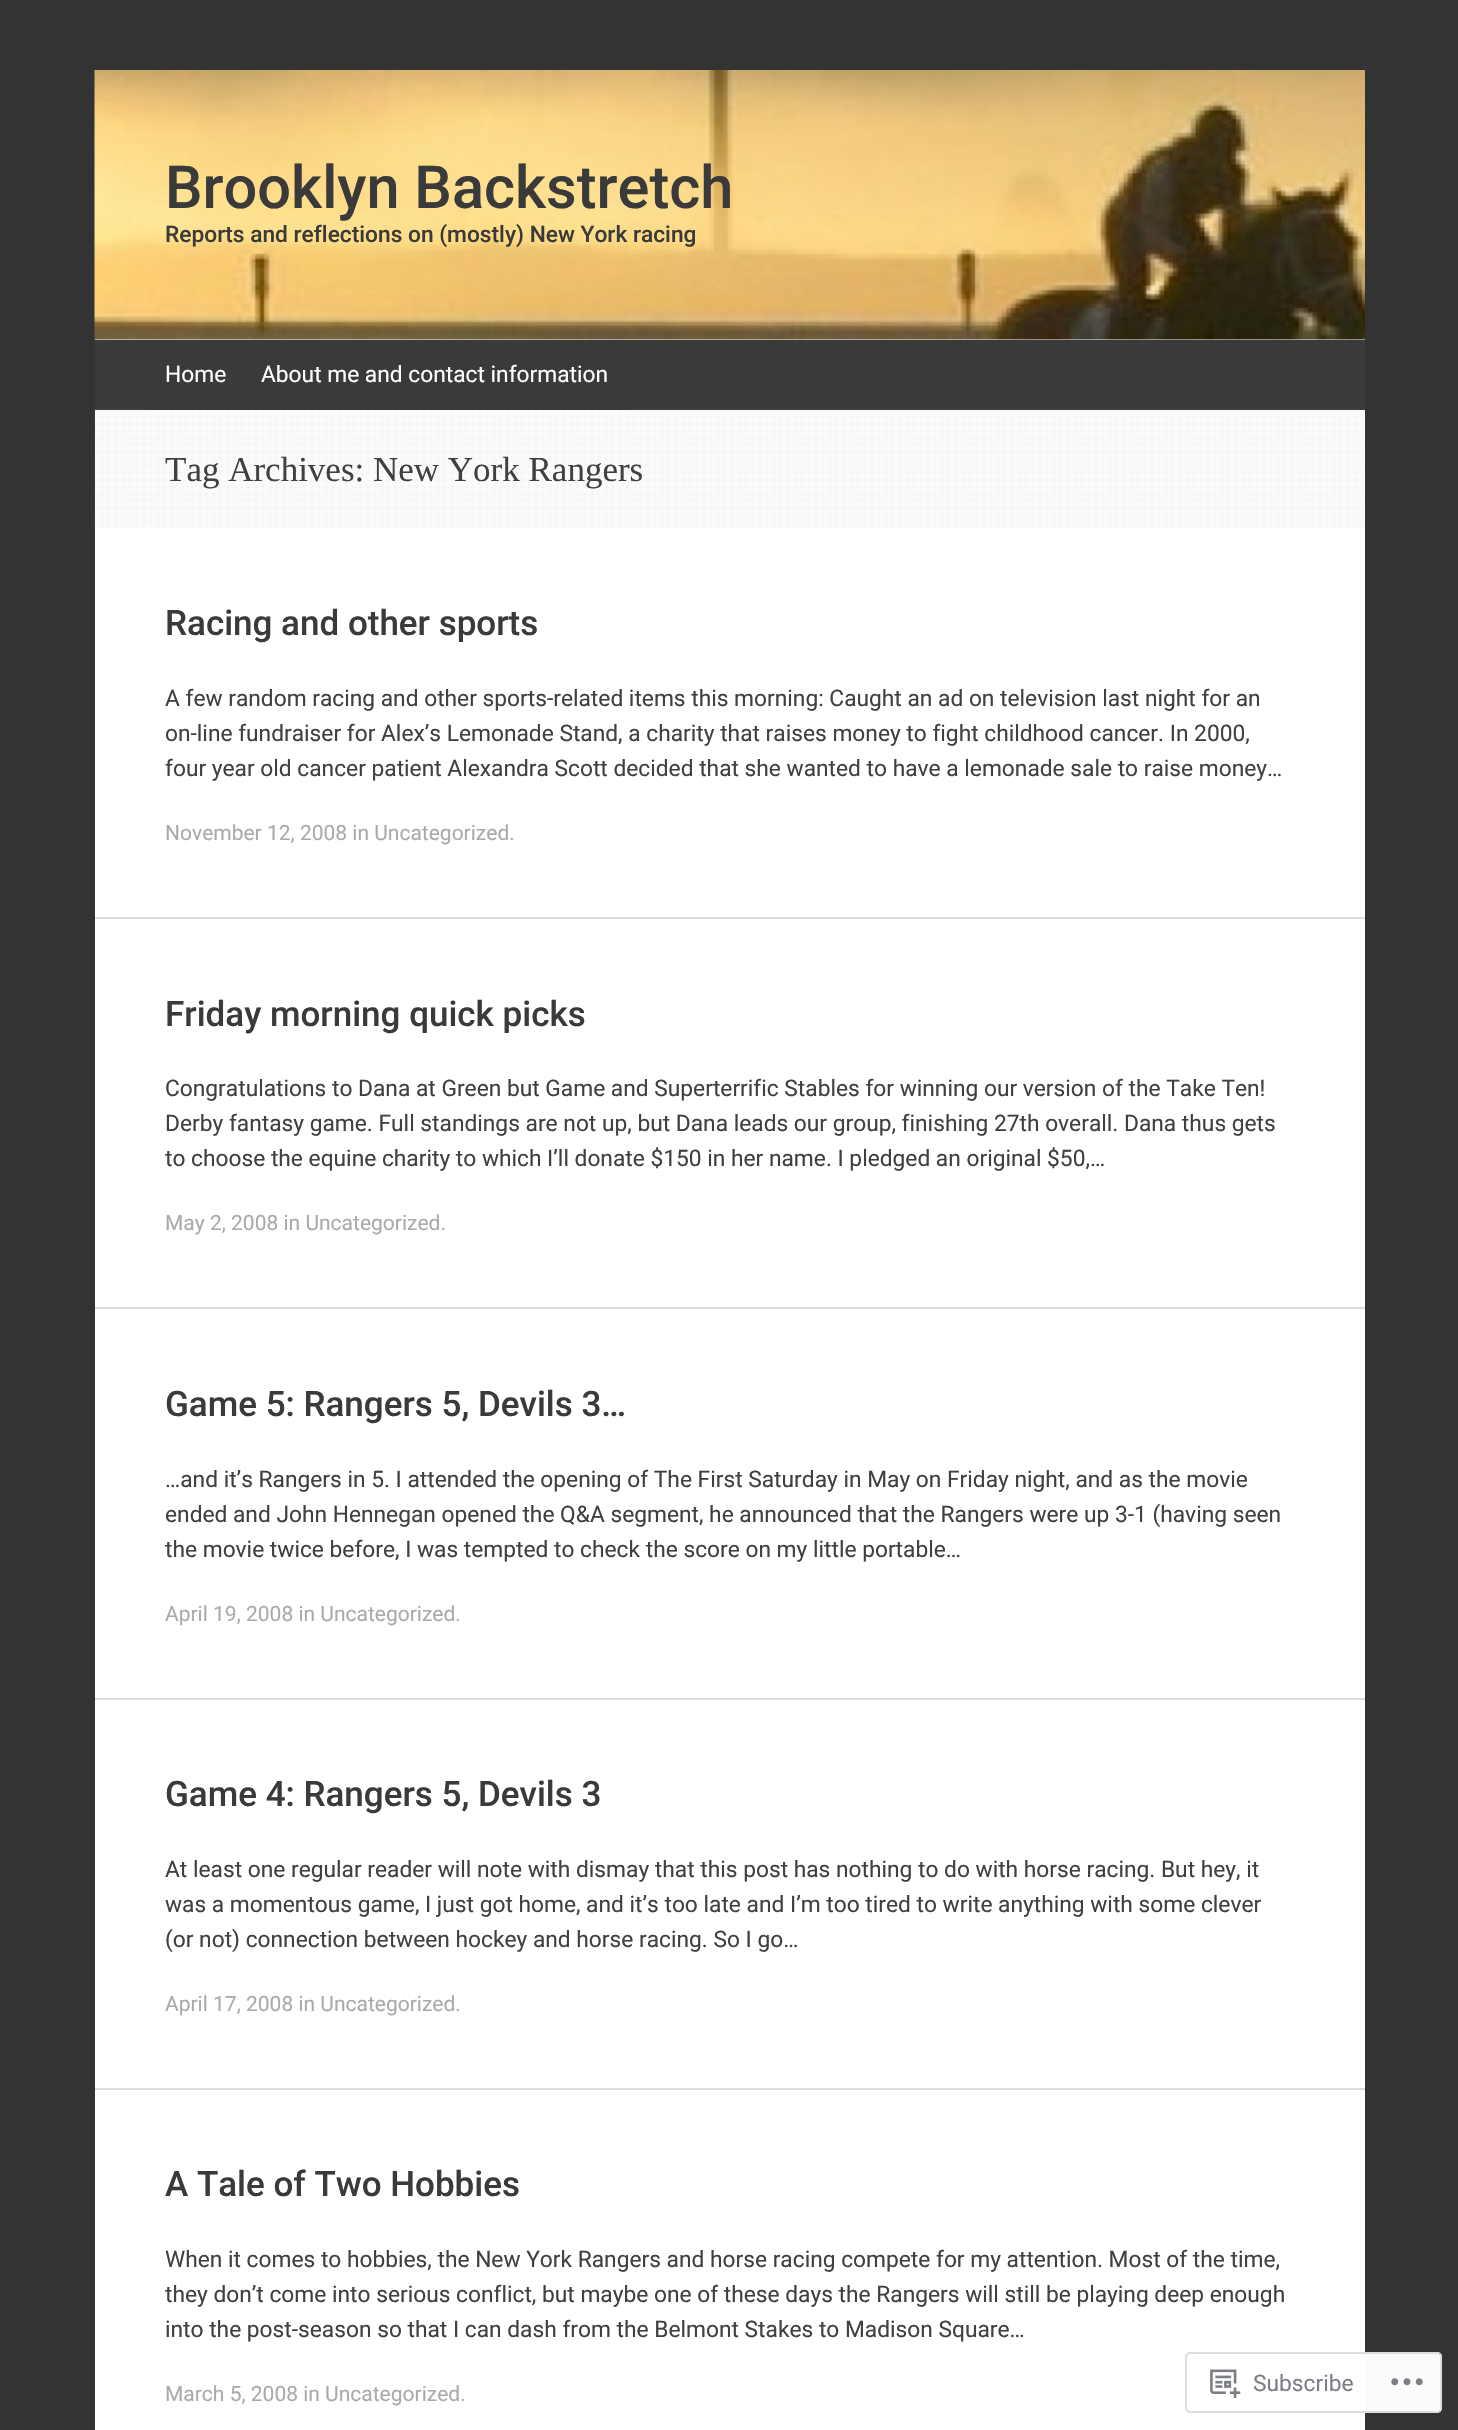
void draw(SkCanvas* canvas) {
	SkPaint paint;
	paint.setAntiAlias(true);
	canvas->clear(0xff333333);
	paint.setColor(0xffffffff);
	canvas->drawRect(SkRect::MakeXYWH(95, 339, 1270, 2091), paint);
	canvas->drawImageRect(SkImages::DeferredFromEncodedData(SkData::MakeFromFileName("img1.png")), SkRect::MakeXYWH(94, 70, 1271, 270), SkSamplingOptions());
	SkFont f1(fontMgr->matchFamilyStyle("Roboto", SkFontStyle(500, SkFontStyle::kNormal_Width, SkFontStyle::kUpright_Slant)), 59.5);
	f1.setSubpixel(true);
	paint.setColor(0xff3a3a3a);
	canvas->drawString("Brooklyn Backstretch", 165, 208, f1, paint);
	SkFont f2(fontMgr->matchFamilyStyle("Roboto", SkFontStyle(500, SkFontStyle::kNormal_Width, SkFontStyle::kUpright_Slant)), 22.75);
	f2.setSubpixel(true);
	canvas->drawString("Reports and reflections on (mostly) New York racing", 165, 242, f2, paint);
	canvas->drawRect(SkRect::MakeXYWH(95, 340, 1270, 70), paint);
	canvas->drawImageRect(SkImages::DeferredFromEncodedData(SkData::MakeFromFileName("img2.png")), SkRect::MakeXYWH(94, 409, 1271, 120), SkSamplingOptions());
	canvas->drawRect(SkRect::MakeXYWH(147, 409, 480, 1), paint);
	SkFont f3(fontMgr->matchFamilyStyle("Roboto", SkFontStyle::Normal()), 22.75);
	f3.setSubpixel(true);
	paint.setColor(0xffffffff);
	canvas->drawString("Home", 165, 382, f3, paint);
	canvas->drawString("About me and contact information", 261, 382, f3, paint);
	SkFont f4(fontMgr->matchFamilyStyle("Liberation Serif", SkFontStyle::Normal()), 35);
	f4.setSubpixel(true);
	paint.setColor(0xff404040);
	canvas->drawString("Tag Archives: New York Rangers", 165, 481, f4, paint);
	paint.setColor(0xffdddddd);
	canvas->drawRect(SkRect::MakeXYWH(95, 917, 1270, 2), paint);
	SkFont f5(fontMgr->matchFamilyStyle("Roboto", SkFontStyle(500, SkFontStyle::kNormal_Width, SkFontStyle::kUpright_Slant)), 35);
	f5.setSubpixel(true);
	paint.setColor(0xff3a3a3a);
	canvas->drawString("Racing and other sports", 165, 635, f5, paint);
	paint.setColor(0xff404040);
	canvas->drawString("A few random racing and other sports-related items this morning: Caught an ad on television last night for an", 165, 706, f3, paint);
	canvas->drawString("on-line fundraiser for Alex’s Lemonade Stand, a charity that raises money to fight childhood cancer. In 2000,", 165, 741, f3, paint);
	canvas->drawString("four year old cancer patient Alexandra Scott decided that she wanted to have a lemonade sale to raise money…", 165, 776, f3, paint);
	SkFont f6(fontMgr->matchFamilyStyle("Roboto", SkFontStyle::Normal()), 21);
	f6.setSubpixel(true);
	paint.setColor(0xffaaaaaa);
	canvas->drawString("November 12, 2008 in Uncategorized.", 165, 840, f6, paint);
	paint.setColor(0xffdddddd);
	canvas->drawRect(SkRect::MakeXYWH(95, 1307, 1270, 2), paint);
	paint.setColor(0xff3a3a3a);
	canvas->drawString("Friday morning quick picks", 165, 1026, f5, paint);
	paint.setColor(0xff404040);
	canvas->drawString("Congratulations to Dana at Green but Game and Superterrific Stables for winning our version of the Take Ten!", 165, 1096, f3, paint);
	canvas->drawString("Derby fantasy game. Full standings are not up, but Dana leads our group, finishing 27th overall. Dana thus gets", 165, 1131, f3, paint);
	canvas->drawString("to choose the equine charity to which I’ll donate $150 in her name. I pledged an original $50,…", 165, 1166, f3, paint);
	paint.setColor(0xffaaaaaa);
	canvas->drawString("May 2, 2008 in Uncategorized.", 165, 1230, f6, paint);
	paint.setColor(0xffdddddd);
	canvas->drawRect(SkRect::MakeXYWH(95, 1698, 1270, 2), paint);
	paint.setColor(0xff3a3a3a);
	canvas->drawString("Game 5: Rangers 5, Devils 3…", 165, 1416, f5, paint);
	paint.setColor(0xff404040);
	canvas->drawString("…and it’s Rangers in 5. I attended the opening of The First Saturday in May on Friday night, and as the movie", 165, 1487, f3, paint);
	canvas->drawString("ended and John Hennegan opened the Q&A segment, he announced that the Rangers were up 3-1 (having seen", 165, 1522, f3, paint);
	canvas->drawString("the movie twice before, I was tempted to check the score on my little portable…", 165, 1557, f3, paint);
	paint.setColor(0xffaaaaaa);
	canvas->drawString("April 19, 2008 in Uncategorized.", 165, 1621, f6, paint);
	paint.setColor(0xffdddddd);
	canvas->drawRect(SkRect::MakeXYWH(95, 2088, 1270, 2), paint);
	paint.setColor(0xff3a3a3a);
	canvas->drawString("Game 4: Rangers 5, Devils 3", 165, 1806, f5, paint);
	paint.setColor(0xff404040);
	canvas->drawString("At least one regular reader will note with dismay that this post has nothing to do with horse racing. But hey, it", 165, 1877, f3, paint);
	canvas->drawString("was a momentous game, I just got home, and it’s too late and I’m too tired to write anything with some clever", 165, 1912, f3, paint);
	canvas->drawString("(or not) connection between hockey and horse racing. So I go…", 165, 1947, f3, paint);
	paint.setColor(0xffaaaaaa);
	canvas->drawString("April 17, 2008 in Uncategorized.", 165, 2011, f6, paint);
	paint.setColor(0xff3a3a3a);
	canvas->drawString("A Tale of Two Hobbies", 165, 2196, f5, paint);
	paint.setColor(0xff404040);
	canvas->drawString("When it comes to hobbies, the New York Rangers and horse racing compete for my attention. Most of the time,", 165, 2267, f3, paint);
	canvas->drawString("they don’t come into serious conflict, but maybe one of these days the Rangers will still be playing deep enough", 165, 2302, f3, paint);
	canvas->drawString("into the post-season so that I can dash from the Belmont Stakes to Madison Square…", 165, 2337, f3, paint);
	paint.setColor(0xffaaaaaa);
	canvas->drawString("March 5, 2008 in Uncategorized.", 165, 2401, f6, paint);
	paint.setColor(0xfaffffff);
	canvas->drawRoundRect(SkRect::MakeXYWH(1185, 2352, 257, 61), 5, 5, paint);
	paint.setStroke(true);
	paint.setStrokeWidth(2);
	paint.setColor(0xfadcdcde);
	canvas->drawRoundRect(SkRect::MakeXYWH(1186, 2353, 255, 59), 4, 4, paint);
	canvas->drawImageRect(SkImages::DeferredFromEncodedData(SkData::MakeFromFileName("img3.png")), SkRect::MakeXYWH(1210, 2369, 31, 29), SkSamplingOptions());
	paint.setStroke(false);
	paint.setColor(0xff7b7f85);
	canvas->drawString("Subscribe", 1253, 2391, f3, paint);
	canvas->drawImageRect(SkImages::DeferredFromEncodedData(SkData::MakeFromFileName("img4.png")), SkRect::MakeXYWH(1391, 2378, 32, 8), SkSamplingOptions());
}
